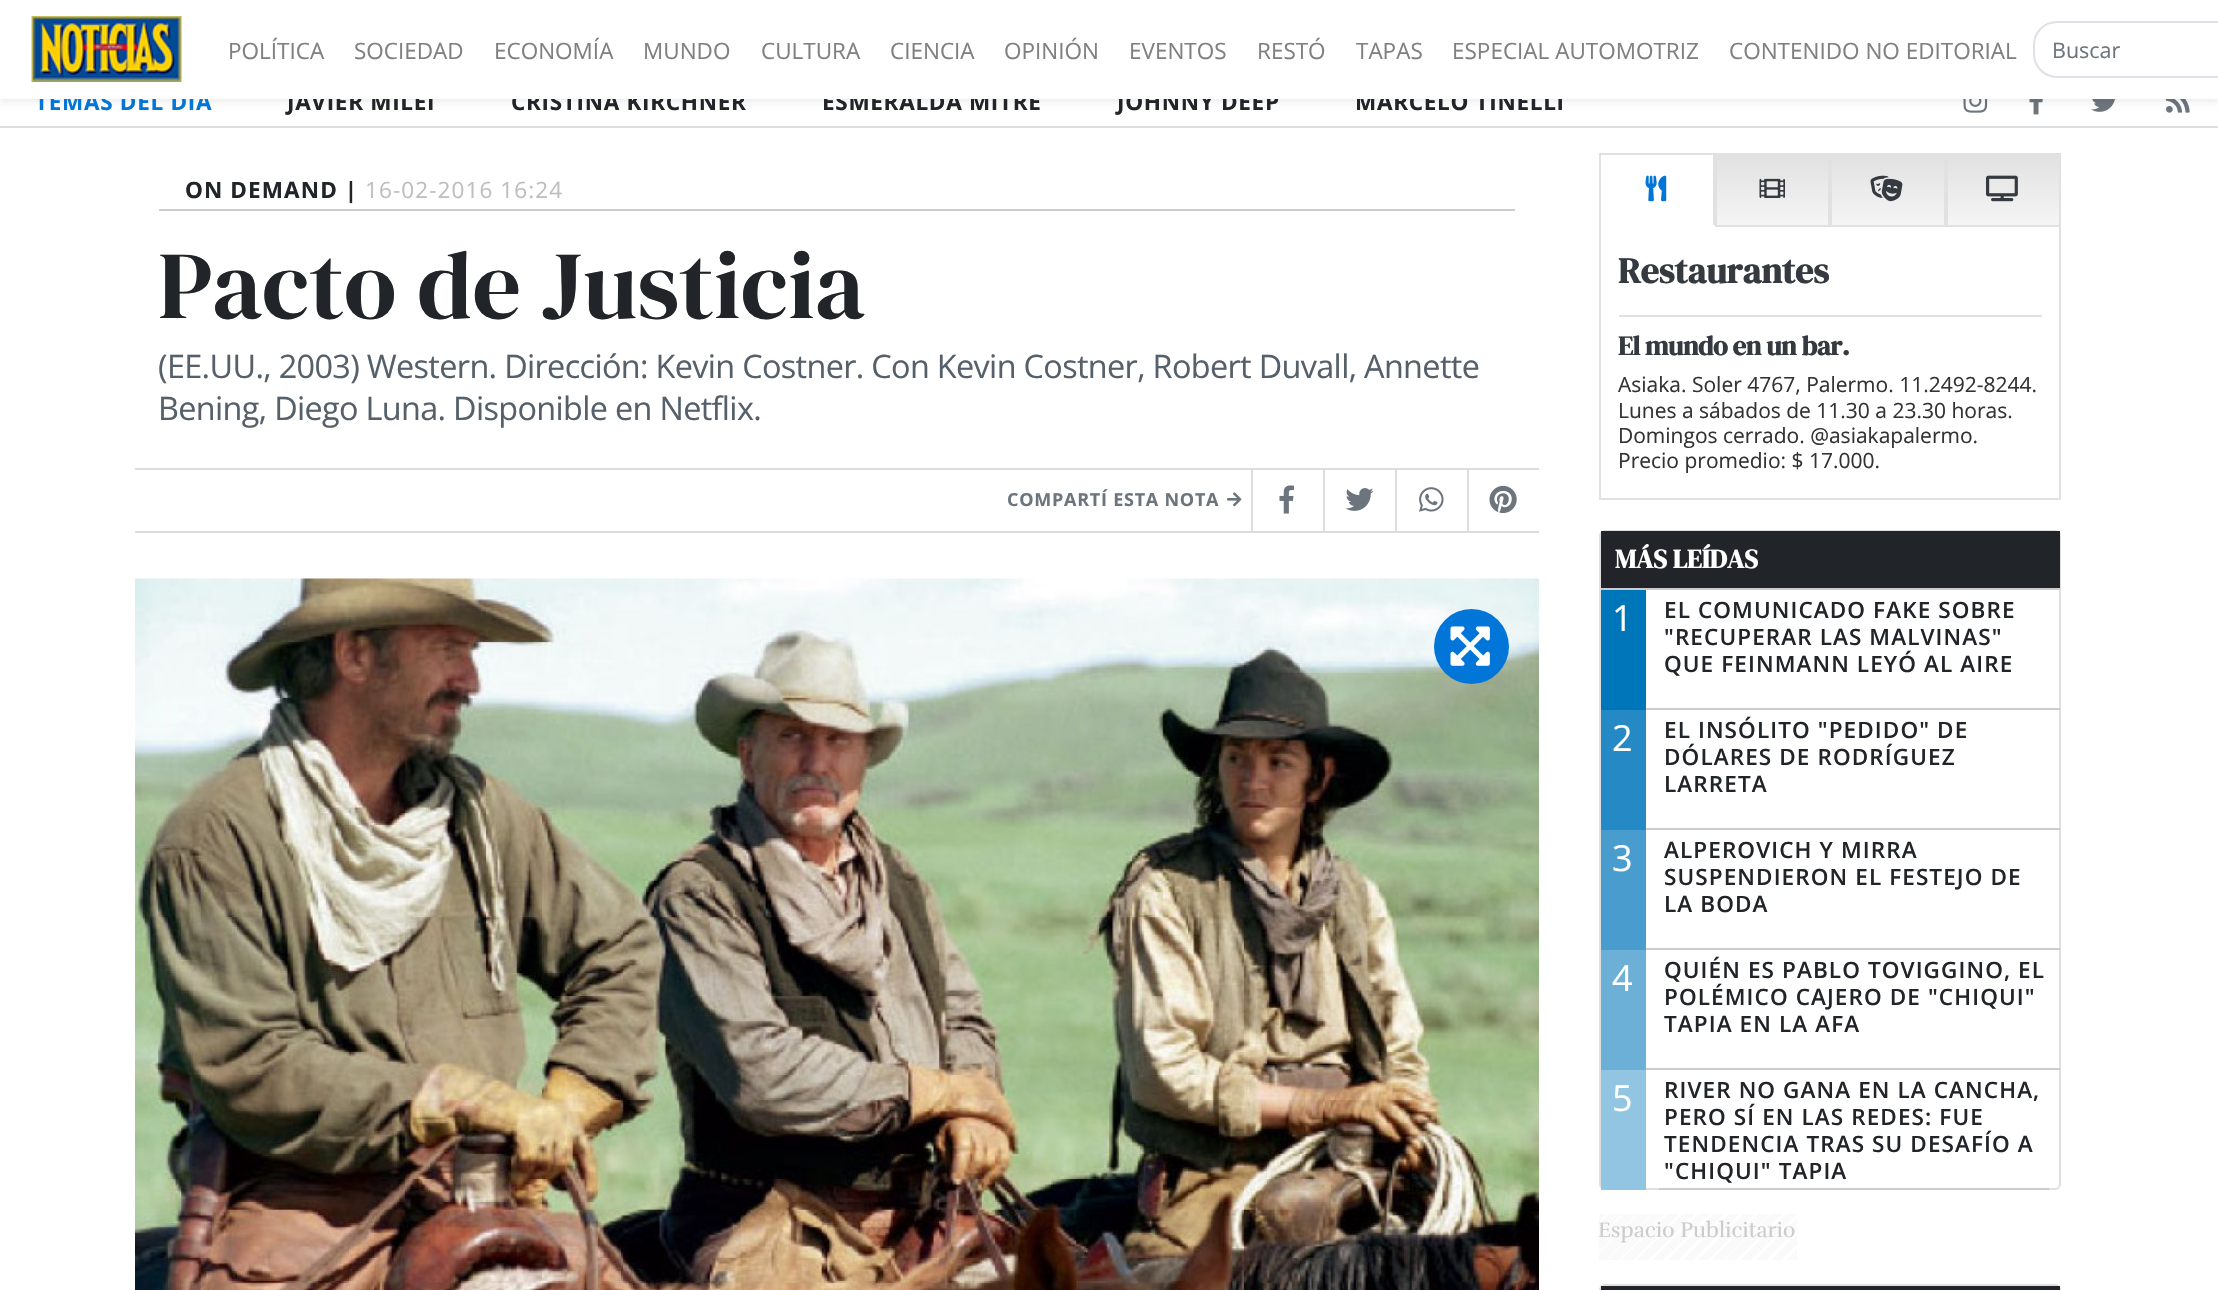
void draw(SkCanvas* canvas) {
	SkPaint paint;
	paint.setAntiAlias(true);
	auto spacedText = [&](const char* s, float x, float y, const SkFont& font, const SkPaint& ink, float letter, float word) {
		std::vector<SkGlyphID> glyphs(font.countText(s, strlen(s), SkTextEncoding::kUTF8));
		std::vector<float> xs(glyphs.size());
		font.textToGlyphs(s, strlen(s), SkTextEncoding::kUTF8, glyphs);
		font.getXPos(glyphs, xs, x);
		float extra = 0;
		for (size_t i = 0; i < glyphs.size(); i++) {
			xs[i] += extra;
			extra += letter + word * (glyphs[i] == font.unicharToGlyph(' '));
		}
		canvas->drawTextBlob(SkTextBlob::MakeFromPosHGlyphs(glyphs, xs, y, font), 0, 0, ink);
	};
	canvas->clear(0xffffffff);
	canvas->drawImageRect(SkImages::DeferredFromEncodedData(SkData::MakeFromFileName("img2.png")), SkRect::MakeXYWH(1963, 99, 25, 14), SkSamplingOptions());
	canvas->drawImageRect(SkImages::DeferredFromEncodedData(SkData::MakeFromFileName("img3.png")), SkRect::MakeXYWH(2029, 99, 14, 16), SkSamplingOptions());
	canvas->drawImageRect(SkImages::DeferredFromEncodedData(SkData::MakeFromFileName("img4.png")), SkRect::MakeXYWH(2091, 99, 24, 13), SkSamplingOptions());
	canvas->drawImageRect(SkImages::DeferredFromEncodedData(SkData::MakeFromFileName("img5.png")), SkRect::MakeXYWH(2166, 99, 24, 14), SkSamplingOptions());
	paint.setColor(0x12000000);
	paint.setMaskFilter(SkMaskFilter::MakeBlur(kNormal_SkBlurStyle, 3));
	canvas->drawRect(SkRect::MakeXYWH(0, 3, 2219, 99), paint);
	paint.setMaskFilter(nullptr);
	SkFont f1(fontMgr->matchFamilyStyle("Open Sans", SkFontStyle::Bold()), 22.5);
	f1.setSubpixel(true);
	paint.setColor(0xff0275d8);
	spacedText("TEMAS DEL DÍA", 35, 110, f1, paint, 0.7, 0);
	paint.setColor(0xff212529);
	spacedText("JAVIER MILEI", 287, 110, f1, paint, 0.7, 0);
	spacedText("CRISTINA KIRCHNER", 511, 110, f1, paint, 0.7, 0);
	spacedText("ESMERALDA MITRE", 822, 110, f1, paint, 0.7, 0);
	spacedText("JOHNNY DEEP", 1117, 110, f1, paint, 0.7, 0);
	spacedText("MARCELO TINELLI", 1355, 110, f1, paint, 0.7, 0);
	paint.setColor(0xffffffff);
	canvas->drawRect(SkRect::MakeXYWH(0, 0, 2218, 99), paint);
	canvas->drawImageRect(SkImages::DeferredFromEncodedData(SkData::MakeFromFileName("img1.png")), SkRect::MakeXYWH(31, 16, 151, 66), SkSamplingOptions());
	SkFont f2(fontMgr->matchFamilyStyle("Open Sans", SkFontStyle::Normal()), 22.5);
	f2.setSubpixel(true);
	paint.setColor(0xff808080);
	canvas->drawString("POLÍTICA", 228, 59, f2, paint);
	canvas->drawString("SOCIEDAD", 354, 59, f2, paint);
	canvas->drawString("ECONOMÍA", 494, 59, f2, paint);
	canvas->drawString("MUNDO", 643, 59, f2, paint);
	canvas->drawString("CULTURA", 761, 59, f2, paint);
	canvas->drawString("CIENCIA", 890, 59, f2, paint);
	canvas->drawString("OPINIÓN", 1004, 59, f2, paint);
	canvas->drawString("EVENTOS", 1129, 59, f2, paint);
	canvas->drawString("RESTÓ", 1257, 59, f2, paint);
	canvas->drawString("TAPAS", 1356, 59, f2, paint);
	canvas->drawString("ESPECIAL AUTOMOTRIZ", 1452, 59, f2, paint);
	canvas->drawString("CONTENIDO NO EDITORIAL", 1729, 59, f2, paint);
	paint.setStroke(true);
	paint.setStrokeWidth(2);
	paint.setColor(0xffdee2e6);
	canvas->drawRoundRect(SkRect::MakeXYWH(2034, 22, 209, 55), 23, 23, paint);
	SkFont f3(fontMgr->matchFamilyStyle("Open Sans", SkFontStyle::Normal()), 21.5);
	f3.setSubpixel(true);
	paint.setStroke(false);
	paint.setColor(0xff6c757d);
	canvas->drawString("Buscar", 2052, 58, f3, paint);
	paint.setColor(0xffdbddde);
	canvas->drawRect(SkRect::MakeXYWH(0, 126, 2218, 2), paint);
	paint.setColor(0xffcccccc);
	canvas->drawRect(SkRect::MakeXYWH(159, 209, 1356, 2), paint);
	paint.setColor(0xff212529);
	spacedText("ON DEMAND |", 185, 198, f1, paint, 1.1, 0);
	paint.setColor(0xffbebebe);
	spacedText("16-02-2016 16:24", 365, 198, f2, paint, 1.1, 0);
	SkFont f4(fontMgr->matchFamilyStyle("DM Serif Display", SkFontStyle::Normal()), 96);
	f4.setSubpixel(true);
	paint.setColor(0xff212529);
	canvas->drawString("Pacto de Justicia", 158, 318, f4, paint);
	SkFont f5(fontMgr->matchFamilyStyle("Open Sans", SkFontStyle::Normal()), 32.4);
	f5.setSubpixel(true);
	paint.setColor(0xff55606a);
	spacedText("(EE.UU., 2003) Western. Dirección: Kevin Costner. Con Kevin Costner, Robert Duvall, Annette", 158, 378, f5, paint, -0.65, -0.1);
	spacedText("Bening, Diego Luna. Disponible en Netflix.", 158, 420, f5, paint, -0.65, -0.1);
	paint.setColor(0xffdbddde);
	canvas->drawRect(SkRect::MakeXYWH(135, 468, 1404, 2), paint);
	canvas->drawRect(SkRect::MakeXYWH(135, 531, 1404, 2), paint);
	SkFont f6(fontMgr->matchFamilyStyle("Open Sans", SkFontStyle::Bold()), 18);
	f6.setSubpixel(true);
	paint.setColor(0xff6c757d);
	spacedText("COMPARTÍ ESTA NOTA", 1007, 506, f6, paint, 0.75, 0);
	canvas->drawImageRect(SkImages::DeferredFromEncodedData(SkData::MakeFromFileName("img6.png")), SkRect::MakeXYWH(1227, 492, 15, 15), SkSamplingOptions());
	paint.setColor(0xffdbddde);
	canvas->drawRect(SkRect::MakeXYWH(1251, 470, 2, 61), paint);
	canvas->drawImageRect(SkImages::DeferredFromEncodedData(SkData::MakeFromFileName("img7.png")), SkRect::MakeXYWH(1279, 485, 15, 29), SkSamplingOptions());
	canvas->drawRect(SkRect::MakeXYWH(1323, 470, 2, 61), paint);
	canvas->drawImageRect(SkImages::DeferredFromEncodedData(SkData::MakeFromFileName("img8.png")), SkRect::MakeXYWH(1345, 488, 29, 23), SkSamplingOptions());
	canvas->drawRect(SkRect::MakeXYWH(1395, 470, 2, 61), paint);
	canvas->drawImageRect(SkImages::DeferredFromEncodedData(SkData::MakeFromFileName("img9.png")), SkRect::MakeXYWH(1419, 487, 25, 25), SkSamplingOptions());
	canvas->drawRect(SkRect::MakeXYWH(1467, 470, 2, 61), paint);
	canvas->drawImageRect(SkImages::DeferredFromEncodedData(SkData::MakeFromFileName("img10.png")), SkRect::MakeXYWH(1489, 485, 28, 29), SkSamplingOptions());
	canvas->drawImageRect(SkImages::DeferredFromEncodedData(SkData::MakeFromFileName("img11.png")), SkRect::MakeXYWH(135, 578, 1404, 712), SkSamplingOptions());
	paint.setColor(0xff0275d8);
	canvas->drawCircle(1471.5, 646.5, 37.5, paint);
	canvas->drawImageRect(SkImages::DeferredFromEncodedData(SkData::MakeFromFileName("img12.png")), SkRect::MakeXYWH(1450, 626, 40, 40), SkSamplingOptions());
	paint.setColor(0xffe1e1e1);
	canvas->drawRect(SkRect::MakeXYWH(1599, 153, 116, 2), paint);
	paint.setStroke(true);
	canvas->drawRect(SkRect::MakeXYWH(1600, 226, 460, 273), paint);
	paint.setStroke(false);
	canvas->drawRect(SkRect::MakeXYWH(1713, 153, 2, 74), paint);
	paint.setColor(0xffffffff);
	canvas->drawRect(SkRect::MakeXYWH(1599, 225, 116, 2), paint);
	paint.setColor(0xffe1e1e1);
	canvas->drawRect(SkRect::MakeXYWH(1599, 153, 2, 74), paint);
	canvas->drawImageRect(SkImages::DeferredFromEncodedData(SkData::MakeFromFileName("img13.png")), SkRect::MakeXYWH(1645, 175, 22, 27), SkSamplingOptions());
	{
		const SkColor colors[] = {0xffe1e1e1, 0xfff5f5f5};
		const float stops[] = {0, 1};
		const SkPoint ends[] = {{1772, 155}, {1772, 225}};
		paint.setShader(SkGradientShader::MakeLinear(ends, colors, stops, 2, SkTileMode::kClamp));
		paint.setAlpha(255);
	}
	canvas->drawRect(SkRect::MakeXYWH(1717, 155, 111, 70), paint);
	paint.setStroke(true);
	paint.setShader(nullptr);
	paint.setColor(0xffe1e1e1);
	canvas->drawRect(SkRect::MakeXYWH(1716, 154, 113, 72), paint);
	canvas->drawImageRect(SkImages::DeferredFromEncodedData(SkData::MakeFromFileName("img14.png")), SkRect::MakeXYWH(1759, 178, 26, 20), SkSamplingOptions());
	paint.setStroke(false);
	{
		const SkColor colors[] = {0xffe1e1e1, 0xfff5f5f5};
		const float stops[] = {0, 1};
		const SkPoint ends[] = {{1888, 155}, {1888, 225}};
		paint.setShader(SkGradientShader::MakeLinear(ends, colors, stops, 2, SkTileMode::kClamp));
		paint.setAlpha(255);
	}
	canvas->drawRect(SkRect::MakeXYWH(1832, 155, 112, 70), paint);
	paint.setStroke(true);
	paint.setShader(nullptr);
	paint.setColor(0xffe1e1e1);
	canvas->drawRect(SkRect::MakeXYWH(1831, 154, 114, 72), paint);
	canvas->drawImageRect(SkImages::DeferredFromEncodedData(SkData::MakeFromFileName("img15.png")), SkRect::MakeXYWH(1870, 175, 33, 27), SkSamplingOptions());
	paint.setStroke(false);
	{
		const SkColor colors[] = {0xffe1e1e1, 0xfff5f5f5};
		const float stops[] = {0, 1};
		const SkPoint ends[] = {{2003, 155}, {2003, 225}};
		paint.setShader(SkGradientShader::MakeLinear(ends, colors, stops, 2, SkTileMode::kClamp));
		paint.setAlpha(255);
	}
	canvas->drawRect(SkRect::MakeXYWH(1948, 155, 111, 70), paint);
	paint.setStroke(true);
	paint.setShader(nullptr);
	paint.setColor(0xffe1e1e1);
	canvas->drawRect(SkRect::MakeXYWH(1947, 154, 113, 72), paint);
	canvas->drawImageRect(SkImages::DeferredFromEncodedData(SkData::MakeFromFileName("img16.png")), SkRect::MakeXYWH(1986, 175, 32, 27), SkSamplingOptions());
	SkFont f7(fontMgr->matchFamilyStyle("DM Serif Display", SkFontStyle::Bold()), 36);
	f7.setSubpixel(true);
	paint.setStroke(false);
	paint.setColor(0xff343a40);
	canvas->drawString("Restaurantes", 1618, 283, f7, paint);
	paint.setColor(0xffe1e1e1);
	canvas->drawRect(SkRect::MakeXYWH(1619, 315, 423, 2), paint);
	SkFont f8(fontMgr->matchFamilyStyle("DM Serif Display", SkFontStyle::Bold()), 27);
	f8.setSubpixel(true);
	paint.setColor(0xff343a40);
	spacedText("El mundo en un bar.", 1618, 355, f8, paint, -0.5, 0);
	SkFont f9(fontMgr->matchFamilyStyle("Open Sans", SkFontStyle::Normal()), 21);
	f9.setSubpixel(true);
	paint.setColor(0xff333333);
	canvas->drawString("Asiaka. Soler 4767, Palermo. 11.2492-8244.", 1618, 392, f9, paint);
	canvas->drawString("Lunes a sábados de 11.30 a 23.30 horas.", 1618, 418, f9, paint);
	canvas->drawString("Domingos cerrado. @asiakapalermo.", 1618, 443, f9, paint);
	canvas->drawString("Precio promedio: $ 17.000.", 1618, 468, f9, paint);
	paint.setStroke(true);
	paint.setColor(0xffdfdfdf);
	canvas->drawRoundRect(SkRect::MakeXYWH(1600, 531, 460, 658), 5, 5, paint);
	paint.setStroke(false);
	paint.setColor(0xff212529);
	canvas->drawRect(SkRect::MakeXYWH(1601, 531, 459, 57), paint);
	SkFont f10(fontMgr->matchFamilyStyle("DM Serif Display", SkFontStyle::Bold()), 26.5);
	f10.setSubpixel(true);
	paint.setColor(0xffffffff);
	canvas->drawString("MÁS LEÍDAS", 1615, 568, f10, paint);
	paint.setColor(0xffcccccc);
	canvas->drawRect(SkRect::MakeXYWH(1601, 588, 459, 2), paint);
	paint.setColor(0xff0076ba);
	canvas->drawRect(SkRect::MakeXYWH(1601, 590, 45, 120), paint);
	SkFont f11(fontMgr->matchFamilyStyle("Open Sans", SkFontStyle::Normal()), 36);
	f11.setSubpixel(true);
	paint.setColor(0xffffffff);
	canvas->drawString("1", 1612, 631, f11, paint);
	SkFont f12(fontMgr->matchFamilyStyle("Open Sans", SkFontStyle(600, SkFontStyle::kNormal_Width, SkFontStyle::kUpright_Slant)), 22.5);
	f12.setSubpixel(true);
	paint.setColor(0xff212529);
	spacedText("EL COMUNICADO FAKE SOBRE", 1664, 618, f12, paint, 1.1, 0);
	spacedText("\"RECUPERAR LAS MALVINAS\"", 1664, 645, f12, paint, 1.1, 0);
	spacedText("QUE FEINMANN LEYÓ AL AIRE", 1664, 672, f12, paint, 1.1, 0);
	paint.setColor(0xffcccccc);
	canvas->drawRect(SkRect::MakeXYWH(1646, 708, 414, 2), paint);
	paint.setColor(0xff2489c4);
	canvas->drawRect(SkRect::MakeXYWH(1601, 710, 45, 120), paint);
	paint.setColor(0xffffffff);
	canvas->drawString("2", 1612, 751, f11, paint);
	paint.setColor(0xff212529);
	spacedText("EL INSÓLITO \"PEDIDO\" DE", 1664, 738, f12, paint, 1.1, 0);
	spacedText("DÓLARES DE RODRÍGUEZ", 1664, 765, f12, paint, 1.1, 0);
	spacedText("LARRETA", 1664, 792, f12, paint, 1.1, 0);
	paint.setColor(0xffcccccc);
	canvas->drawRect(SkRect::MakeXYWH(1646, 828, 414, 2), paint);
	paint.setColor(0xff499dce);
	canvas->drawRect(SkRect::MakeXYWH(1601, 830, 45, 120), paint);
	paint.setColor(0xffffffff);
	canvas->drawString("3", 1612, 871, f11, paint);
	paint.setColor(0xff212529);
	spacedText("ALPEROVICH Y MIRRA", 1664, 858, f12, paint, 1.1, 0);
	spacedText("SUSPENDIERON EL FESTEJO DE", 1664, 885, f12, paint, 1.1, 0);
	spacedText("LA BODA", 1664, 912, f12, paint, 1.1, 0);
	paint.setColor(0xffcccccc);
	canvas->drawRect(SkRect::MakeXYWH(1646, 948, 414, 2), paint);
	paint.setColor(0xff6db0d7);
	canvas->drawRect(SkRect::MakeXYWH(1601, 950, 45, 120), paint);
	paint.setColor(0xffffffff);
	canvas->drawString("4", 1612, 991, f11, paint);
	paint.setColor(0xff212529);
	spacedText("QUIÉN ES PABLO TOVIGGINO, EL", 1664, 978, f12, paint, 1.1, 0);
	spacedText("POLÉMICO CAJERO DE \"CHIQUI\"", 1664, 1005, f12, paint, 1.1, 0);
	spacedText("TAPIA EN LA AFA", 1664, 1032, f12, paint, 1.1, 0);
	paint.setColor(0xffcccccc);
	canvas->drawRect(SkRect::MakeXYWH(1646, 1068, 414, 2), paint);
	paint.setColor(0xff92c5e2);
	canvas->drawRect(SkRect::MakeXYWH(1601, 1070, 45, 120), paint);
	paint.setColor(0xffffffff);
	canvas->drawString("5", 1612, 1111, f11, paint);
	paint.setColor(0xffcccccc);
	canvas->drawRect(SkRect::MakeXYWH(1659, 1188, 390, 2), paint);
	paint.setColor(0xff212529);
	spacedText("RIVER NO GANA EN LA CANCHA,", 1664, 1098, f12, paint, 1.1, 0);
	spacedText("PERO SÍ EN LAS REDES: FUE", 1664, 1125, f12, paint, 1.1, 0);
	spacedText("TENDENCIA TRAS SU DESAFÍO A", 1664, 1152, f12, paint, 1.1, 0);
	spacedText("\"CHIQUI\" TAPIA", 1664, 1179, f12, paint, 1.1, 0);
	{
		const SkColor colors[] = {0xfffafafa, 0xfffafafa, 0xffffffff, 0xffffffff, 0xfffafafa, 0xfffafafa, 0xffffffff, 0xffffffff, 0xfffafafa, 0xfffafafa, 0xffffffff, 0xffffffff, 0xfffafafa, 0xfffafafa, 0xffffffff, 0xffffffff, 0xfffafafa, 0xfffafafa, 0xffffffff, 0xffffffff, 0xfffafafa, 0xfffafafa, 0xffffffff, 0xffffffff, 0xfffafafa, 0xfffafafa, 0xffffffff, 0xffffffff, 0xfffafafa, 0xfffafafa, 0xffffffff, 0xffffffff, 0xfffafafa, 0xfffafafa, 0xffffffff, 0xffffffff, 0xfffafafa, 0xfffafafa, 0xffffffff, 0xffffffff, 0xfffafafa, 0xfffafafa, 0xffffffff, 0xffffffff, 0xfffafafa, 0xfffafafa, 0xffffffff, 0xffffffff, 0xfffafafa, 0xfffafafa, 0xffffffff, 0xffffffff, 0xfffafafa, 0xfffafafa, 0xffffffff, 0xffffffff, 0xfffafafa, 0xfffafafa, 0xffffffff, 0xffffffff, 0xfffafafa, 0xfffafafa, 0xffffffff, 0xffffffff, 0xfffafafa, 0xfffafafa, 0xffffffff, 0xffffffff};
		const float stops[] = {0, 0.04, 0.05, 0.06, 0.06, 0.1, 0.11, 0.12, 0.12, 0.16, 0.17, 0.18, 0.18, 0.22, 0.23, 0.24, 0.24, 0.28, 0.29, 0.29, 0.29, 0.34, 0.34, 0.35, 0.35, 0.39, 0.4, 0.41, 0.41, 0.45, 0.46, 0.47, 0.47, 0.51, 0.52, 0.53, 0.53, 0.57, 0.58, 0.59, 0.59, 0.63, 0.64, 0.65, 0.65, 0.69, 0.7, 0.71, 0.71, 0.75, 0.76, 0.76, 0.76, 0.81, 0.82, 0.82, 0.82, 0.87, 0.87, 0.88, 0.88, 0.92, 0.93, 0.94, 0.94, 0.98, 0.99, 1};
		const SkPoint ends[] = {{1759, 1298}, {1633, 1172}};
		paint.setShader(SkGradientShader::MakeLinear(ends, colors, stops, 68, SkTileMode::kClamp));
		paint.setAlpha(255);
	}
	canvas->drawRect(SkRect::MakeXYWH(1599, 1214, 198, 46), paint);
	SkFont f13(fontMgr->matchFamilyStyle("Rufina", SkFontStyle::Normal()), 21.5);
	f13.setSubpixel(true);
	paint.setShader(nullptr);
	paint.setColor(0xffcccccc);
	canvas->drawString("Espacio Publicitario", 1598, 1237, f13, paint);
	paint.setStroke(true);
	paint.setColor(0xffdfdfdf);
	canvas->drawRoundRect(SkRect::MakeXYWH(1600, 1285, 460, 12), 5, 5, paint);
	paint.setStroke(false);
	paint.setColor(0xff212529);
	canvas->drawRect(SkRect::MakeXYWH(1601, 1286, 459, 4), paint);
}
